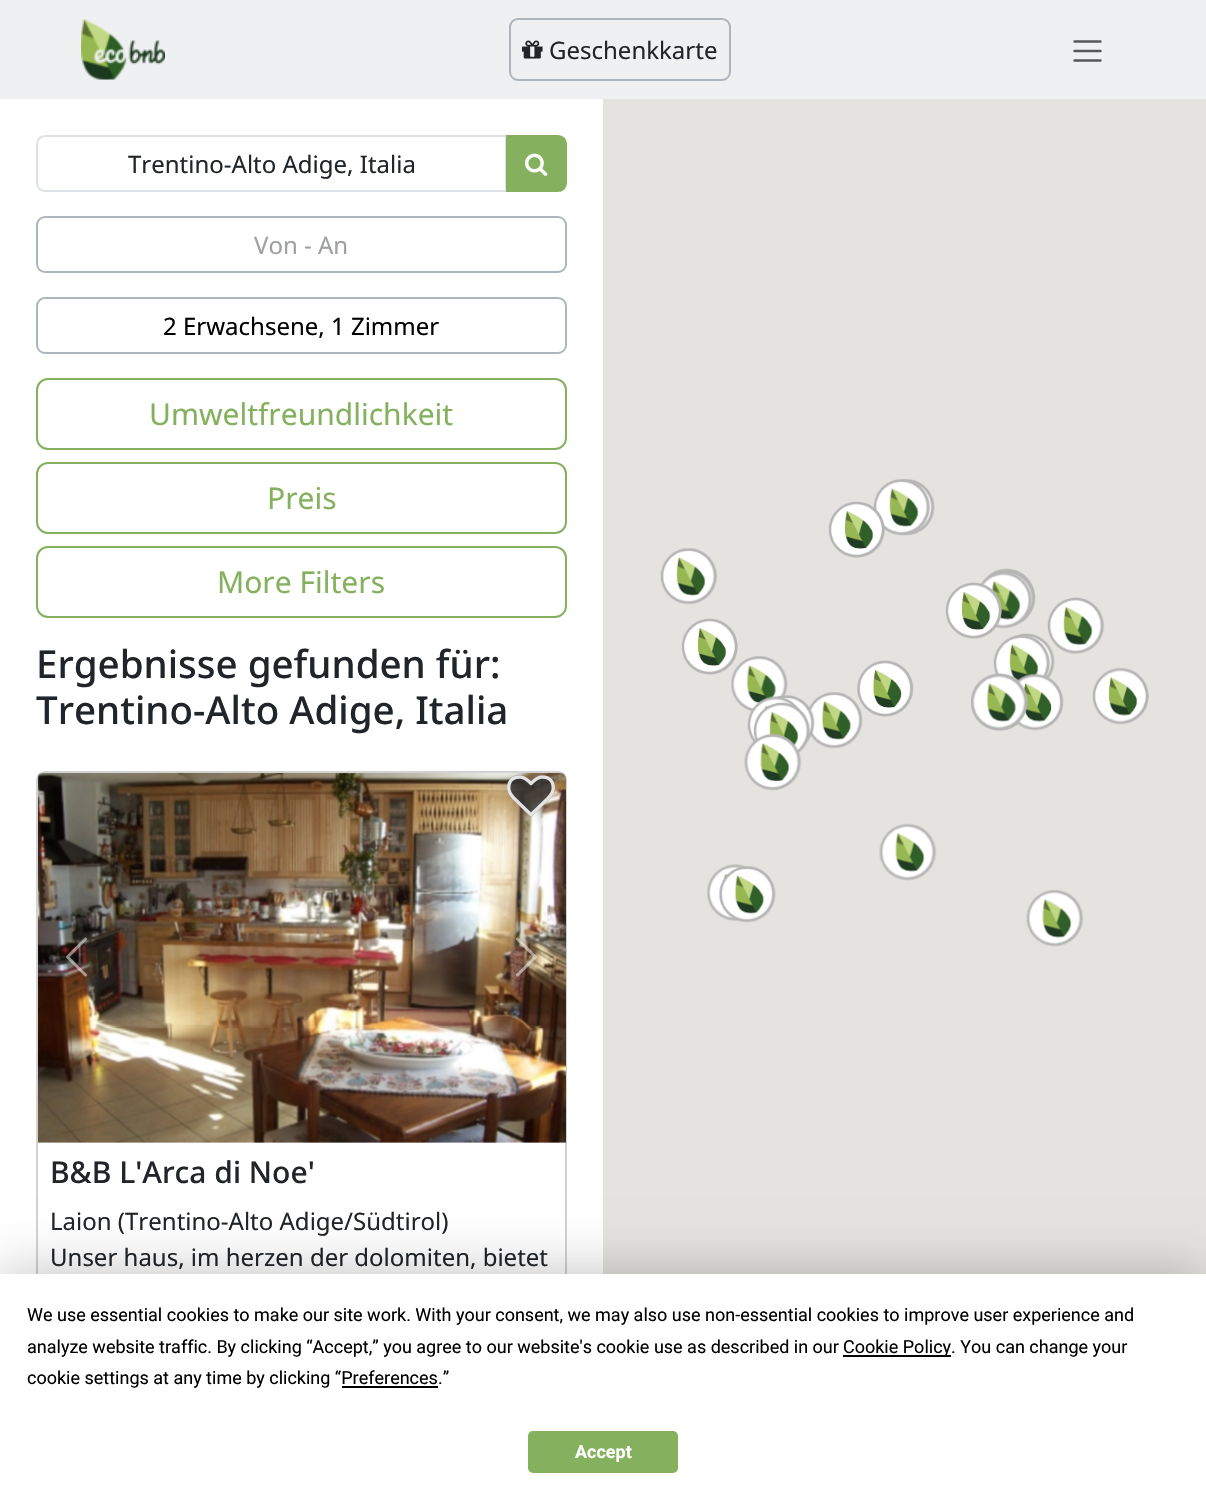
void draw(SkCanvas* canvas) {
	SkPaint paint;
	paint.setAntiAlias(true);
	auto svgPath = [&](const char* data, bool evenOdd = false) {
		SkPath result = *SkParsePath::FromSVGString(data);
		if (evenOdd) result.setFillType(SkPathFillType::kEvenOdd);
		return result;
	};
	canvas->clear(0xffffffff);
	paint.setColor(0xffeff0f2);
	canvas->drawRect(SkRect::MakeXYWH(0, 0, 1206, 99), paint);
	canvas->drawImageRect(SkImages::DeferredFromEncodedData(SkData::MakeFromFileName("img1.png")), SkRect::MakeXYWH(81, 19, 84, 61), SkSamplingOptions());
	paint.setStroke(true);
	paint.setStrokeWidth(2);
	paint.setColor(0xffadb5bd);
	canvas->drawRoundRect(SkRect::MakeXYWH(510, 19, 220, 61), 8, 8, paint);
	canvas->drawImageRect(SkImages::DeferredFromEncodedData(SkData::MakeFromFileName("img2.png")), SkRect::MakeXYWH(522, 40, 21, 19), SkSamplingOptions());
	SkFont f1(fontMgr->matchFamilyStyle("Noto Sans", SkFontStyle::Normal()), 24);
	f1.setSubpixel(true);
	paint.setStroke(false);
	paint.setColor(0xff212529);
	canvas->drawString("Geschenkkarte", 549, 59, f1, paint);
	paint.setStroke(true);
	paint.setStrokeWidth(2.4);
	paint.setStrokeCap(SkPaint::kRound_Cap);
	paint.setColor(0xff55585b);
	canvas->drawPath(svgPath("M1074.5 41.5H1100.5M1074.5 51H1100.5M1074.5 60.5H1100.5"), paint);
	paint.setStrokeWidth(2);
	paint.setStrokeCap(SkPaint::kButt_Cap);
	paint.setColor(0xffdee2e6);
	canvas->drawPath(svgPath("M45 136H506V191H45C40.5 191 37 187.5 37 183V144C37 139.5 40.5 136 45 136Z"), paint);
	paint.setStroke(false);
	paint.setColor(0xff212529);
	canvas->drawString("Trentino-Alto Adige, Italia", 128, 173, f1, paint);
	paint.setColor(0xff85b15e);
	canvas->drawPath(svgPath("M507 136H558C562.5 136 566 139.5 566 144V183C566 187.5 562.5 191 558 191H507Z"), paint);
	paint.setStroke(true);
	canvas->drawPath(svgPath("M507 136H558C562.5 136 566 139.5 566 144V183C566 187.5 562.5 191 558 191H507Z"), paint);
	canvas->drawImageRect(SkImages::DeferredFromEncodedData(SkData::MakeFromFileName("img3.png")), SkRect::MakeXYWH(525, 153, 23, 23), SkSamplingOptions());
	paint.setColor(0xffadb5bd);
	canvas->drawRoundRect(SkRect::MakeXYWH(37, 217, 529, 55), 8, 8, paint);
	paint.setStroke(false);
	paint.setColor(0xff9ea0a2);
	canvas->drawString("Von - An", 254, 254, f1, paint);
	paint.setStroke(true);
	paint.setColor(0xffadb5bd);
	canvas->drawRoundRect(SkRect::MakeXYWH(37, 298, 529, 55), 8, 8, paint);
	paint.setStroke(false);
	paint.setColor(0xff000000);
	canvas->drawString("2 Erwachsene, 1 Zimmer", 163, 335, f1, paint);
	paint.setStroke(true);
	paint.setColor(0xff85b15e);
	canvas->drawRoundRect(SkRect::MakeXYWH(37, 379, 529, 70), 11, 11, paint);
	SkFont f2(fontMgr->matchFamilyStyle("Noto Sans", SkFontStyle::Normal()), 30);
	f2.setSubpixel(true);
	paint.setStroke(false);
	canvas->drawString("Umweltfreundlichkeit", 149, 425, f2, paint);
	paint.setStroke(true);
	canvas->drawRoundRect(SkRect::MakeXYWH(37, 463, 529, 70), 11, 11, paint);
	paint.setStroke(false);
	canvas->drawString("Preis", 267, 509, f2, paint);
	paint.setStroke(true);
	canvas->drawRoundRect(SkRect::MakeXYWH(37, 547, 529, 70), 11, 11, paint);
	paint.setStroke(false);
	canvas->drawString("More Filters", 217, 593, f2, paint);
	SkFont f3(fontMgr->matchFamilyStyle("Noto Sans", SkFontStyle(500, SkFontStyle::kNormal_Width, SkFontStyle::kUpright_Slant)), 38.5);
	f3.setSubpixel(true);
	paint.setColor(0xff212529);
	canvas->drawString("Ergebnisse gefunden für:", 36, 678, f3, paint);
	canvas->drawString("Trentino-Alto Adige, Italia", 36, 724, f3, paint);
	paint.setStroke(true);
	paint.setColor(0xffd2d2d2);
	canvas->drawRoundRect(SkRect::MakeXYWH(37, 772, 529, 673), 8, 8, paint);
	canvas->drawImageRect(SkImages::DeferredFromEncodedData(SkData::MakeFromFileName("img4.png")), SkRect::MakeXYWH(38, 773, 528, 370), SkSamplingOptions());
	canvas->drawImageRect(SkImages::DeferredFromEncodedData(SkData::MakeFromFileName("img5.png")), SkRect::MakeXYWH(507, 775, 48, 42), SkSamplingOptions());
	canvas->drawImageRect(SkImages::DeferredFromEncodedData(SkData::MakeFromFileName("img6.png")), SkRect::MakeXYWH(507, 775, 48, 42), SkSamplingOptions());
	canvas->drawImageRect(SkImages::DeferredFromEncodedData(SkData::MakeFromFileName("img7.png")), SkRect::MakeXYWH(66, 937, 21, 40), SkSamplingOptions());
	canvas->drawImageRect(SkImages::DeferredFromEncodedData(SkData::MakeFromFileName("img8.png")), SkRect::MakeXYWH(516, 937, 21, 40), SkSamplingOptions());
	SkFont f4(fontMgr->matchFamilyStyle("Noto Sans", SkFontStyle(500, SkFontStyle::kNormal_Width, SkFontStyle::kUpright_Slant)), 30);
	f4.setSubpixel(true);
	paint.setStroke(false);
	paint.setColor(0xff212529);
	canvas->drawString("B&B L'Arca di Noe'", 50, 1183, f4, paint);
	canvas->drawString("Laion (Trentino-Alto Adige/Südtirol)", 50, 1230, f1, paint);
	canvas->drawString("Unser haus, im herzen der dolomiten, bietet", 50, 1266, f1, paint);
	paint.setColor(0xffe5e3df);
	canvas->drawRect(SkRect::MakeXYWH(603, 99, 603, 1175), paint);
	canvas->drawImageRect(SkImages::DeferredFromEncodedData(SkData::MakeFromFileName("img11.png")), SkRect::MakeXYWH(893, 479, 42, 57), SkSamplingOptions());
	canvas->drawImageRect(SkImages::DeferredFromEncodedData(SkData::MakeFromFileName("img9.png")), SkRect::MakeXYWH(873, 479, 58, 57), SkSamplingOptions());
	canvas->drawImageRect(SkImages::DeferredFromEncodedData(SkData::MakeFromFileName("img10.png")), SkRect::MakeXYWH(828, 501, 57, 57), SkSamplingOptions());
	canvas->drawImageRect(SkImages::DeferredFromEncodedData(SkData::MakeFromFileName("img12.png")), SkRect::MakeXYWH(660, 548, 58, 57), SkSamplingOptions());
	canvas->drawImageRect(SkImages::DeferredFromEncodedData(SkData::MakeFromFileName("img13.png")), SkRect::MakeXYWH(981, 568, 54, 58), SkSamplingOptions());
	canvas->drawImageRect(SkImages::DeferredFromEncodedData(SkData::MakeFromFileName("img14.png")), SkRect::MakeXYWH(981, 568, 55, 58), SkSamplingOptions());
	canvas->drawImageRect(SkImages::DeferredFromEncodedData(SkData::MakeFromFileName("img15.png")), SkRect::MakeXYWH(981, 571, 55, 56), SkSamplingOptions());
	canvas->drawImageRect(SkImages::DeferredFromEncodedData(SkData::MakeFromFileName("img16.png")), SkRect::MakeXYWH(681, 618, 57, 57), SkSamplingOptions());
	canvas->drawImageRect(SkImages::DeferredFromEncodedData(SkData::MakeFromFileName("img18.png")), SkRect::MakeXYWH(980, 573, 52, 56), SkSamplingOptions());
	canvas->drawImageRect(SkImages::DeferredFromEncodedData(SkData::MakeFromFileName("img17.png")), SkRect::MakeXYWH(945, 582, 57, 57), SkSamplingOptions());
	canvas->drawImageRect(SkImages::DeferredFromEncodedData(SkData::MakeFromFileName("img19.png")), SkRect::MakeXYWH(1047, 597, 58, 57), SkSamplingOptions());
	canvas->drawImageRect(SkImages::DeferredFromEncodedData(SkData::MakeFromFileName("img20.png")), SkRect::MakeXYWH(1005, 633, 50, 46), SkSamplingOptions());
	canvas->drawImageRect(SkImages::DeferredFromEncodedData(SkData::MakeFromFileName("img21.png")), SkRect::MakeXYWH(731, 655, 57, 57), SkSamplingOptions());
	canvas->drawImageRect(SkImages::DeferredFromEncodedData(SkData::MakeFromFileName("img22.png")), SkRect::MakeXYWH(857, 660, 57, 57), SkSamplingOptions());
	canvas->drawImageRect(SkImages::DeferredFromEncodedData(SkData::MakeFromFileName("img23.png")), SkRect::MakeXYWH(993, 635, 58, 46), SkSamplingOptions());
	canvas->drawImageRect(SkImages::DeferredFromEncodedData(SkData::MakeFromFileName("img24.png")), SkRect::MakeXYWH(1092, 667, 57, 58), SkSamplingOptions());
	canvas->drawImageRect(SkImages::DeferredFromEncodedData(SkData::MakeFromFileName("img30.png")), SkRect::MakeXYWH(972, 673, 48, 58), SkSamplingOptions());
	canvas->drawImageRect(SkImages::DeferredFromEncodedData(SkData::MakeFromFileName("img25.png")), SkRect::MakeXYWH(971, 673, 48, 58), SkSamplingOptions());
	canvas->drawImageRect(SkImages::DeferredFromEncodedData(SkData::MakeFromFileName("img31.png")), SkRect::MakeXYWH(1016, 673, 48, 58), SkSamplingOptions());
	canvas->drawImageRect(SkImages::DeferredFromEncodedData(SkData::MakeFromFileName("img26.png")), SkRect::MakeXYWH(971, 673, 57, 58), SkSamplingOptions());
	canvas->drawImageRect(SkImages::DeferredFromEncodedData(SkData::MakeFromFileName("img27.png")), SkRect::MakeXYWH(971, 673, 57, 58), SkSamplingOptions());
	canvas->drawImageRect(SkImages::DeferredFromEncodedData(SkData::MakeFromFileName("img29.png")), SkRect::MakeXYWH(809, 692, 54, 57), SkSamplingOptions());
	canvas->drawImageRect(SkImages::DeferredFromEncodedData(SkData::MakeFromFileName("img28.png")), SkRect::MakeXYWH(771, 695, 44, 50), SkSamplingOptions());
	canvas->drawImageRect(SkImages::DeferredFromEncodedData(SkData::MakeFromFileName("img32.png")), SkRect::MakeXYWH(747, 696, 54, 47), SkSamplingOptions());
	canvas->drawImageRect(SkImages::DeferredFromEncodedData(SkData::MakeFromFileName("img33.png")), SkRect::MakeXYWH(753, 702, 57, 52), SkSamplingOptions());
	canvas->drawImageRect(SkImages::DeferredFromEncodedData(SkData::MakeFromFileName("img34.png")), SkRect::MakeXYWH(744, 733, 58, 58), SkSamplingOptions());
	canvas->drawImageRect(SkImages::DeferredFromEncodedData(SkData::MakeFromFileName("img35.png")), SkRect::MakeXYWH(879, 823, 58, 58), SkSamplingOptions());
	canvas->drawImageRect(SkImages::DeferredFromEncodedData(SkData::MakeFromFileName("img36.png")), SkRect::MakeXYWH(707, 864, 41, 57), SkSamplingOptions());
	canvas->drawImageRect(SkImages::DeferredFromEncodedData(SkData::MakeFromFileName("img37.png")), SkRect::MakeXYWH(719, 866, 57, 57), SkSamplingOptions());
	canvas->drawImageRect(SkImages::DeferredFromEncodedData(SkData::MakeFromFileName("img35.png")), SkRect::MakeXYWH(1026, 889, 58, 58), SkSamplingOptions());
	paint.setColor(0x40000000);
	paint.setMaskFilter(SkMaskFilter::MakeBlur(kNormal_SkBlurStyle, 26));
	canvas->drawRect(SkRect::MakeXYWH(0, 1274, 1206, 226), paint);
	paint.setMaskFilter(nullptr);
	paint.setColor(0xffffffff);
	canvas->drawRect(SkRect::MakeXYWH(0, 1274, 1206, 226), paint);
	SkFont f5(fontMgr->matchFamilyStyle("Roboto", SkFontStyle::Normal()), 18);
	f5.setSubpixel(true);
	paint.setColor(0xff000000);
	canvas->drawString("We use essential cookies to make our site work. With your consent, we may also use non-essential cookies to improve user experience and", 27, 1321, f5, paint);
	canvas->drawString("analyze website traffic. By clicking “Accept,” you agree to our website's cookie use as described in our", 27, 1353, f5, paint);
	canvas->drawRect(SkRect::MakeXYWH(843, 1355, 108, 2), paint);
	canvas->drawString("Cookie Policy. You can change your", 843, 1353, f5, paint);
	canvas->drawString("cookie settings at any time by clicking “Preferences.”", 27, 1384, f5, paint);
	canvas->drawRect(SkRect::MakeXYWH(342, 1386, 96, 2), paint);
	paint.setColor(0xff85b15e);
	canvas->drawRoundRect(SkRect::MakeXYWH(529, 1432, 148, 40), 4, 4, paint);
	paint.setStroke(true);
	canvas->drawRoundRect(SkRect::MakeXYWH(529, 1432, 148, 40), 4, 4, paint);
	SkFont f6(fontMgr->matchFamilyStyle("Roboto", SkFontStyle::Bold()), 18);
	f6.setSubpixel(true);
	paint.setStroke(false);
	paint.setColor(0xffffffff);
	canvas->drawString("Accept", 575, 1458, f6, paint);
}
